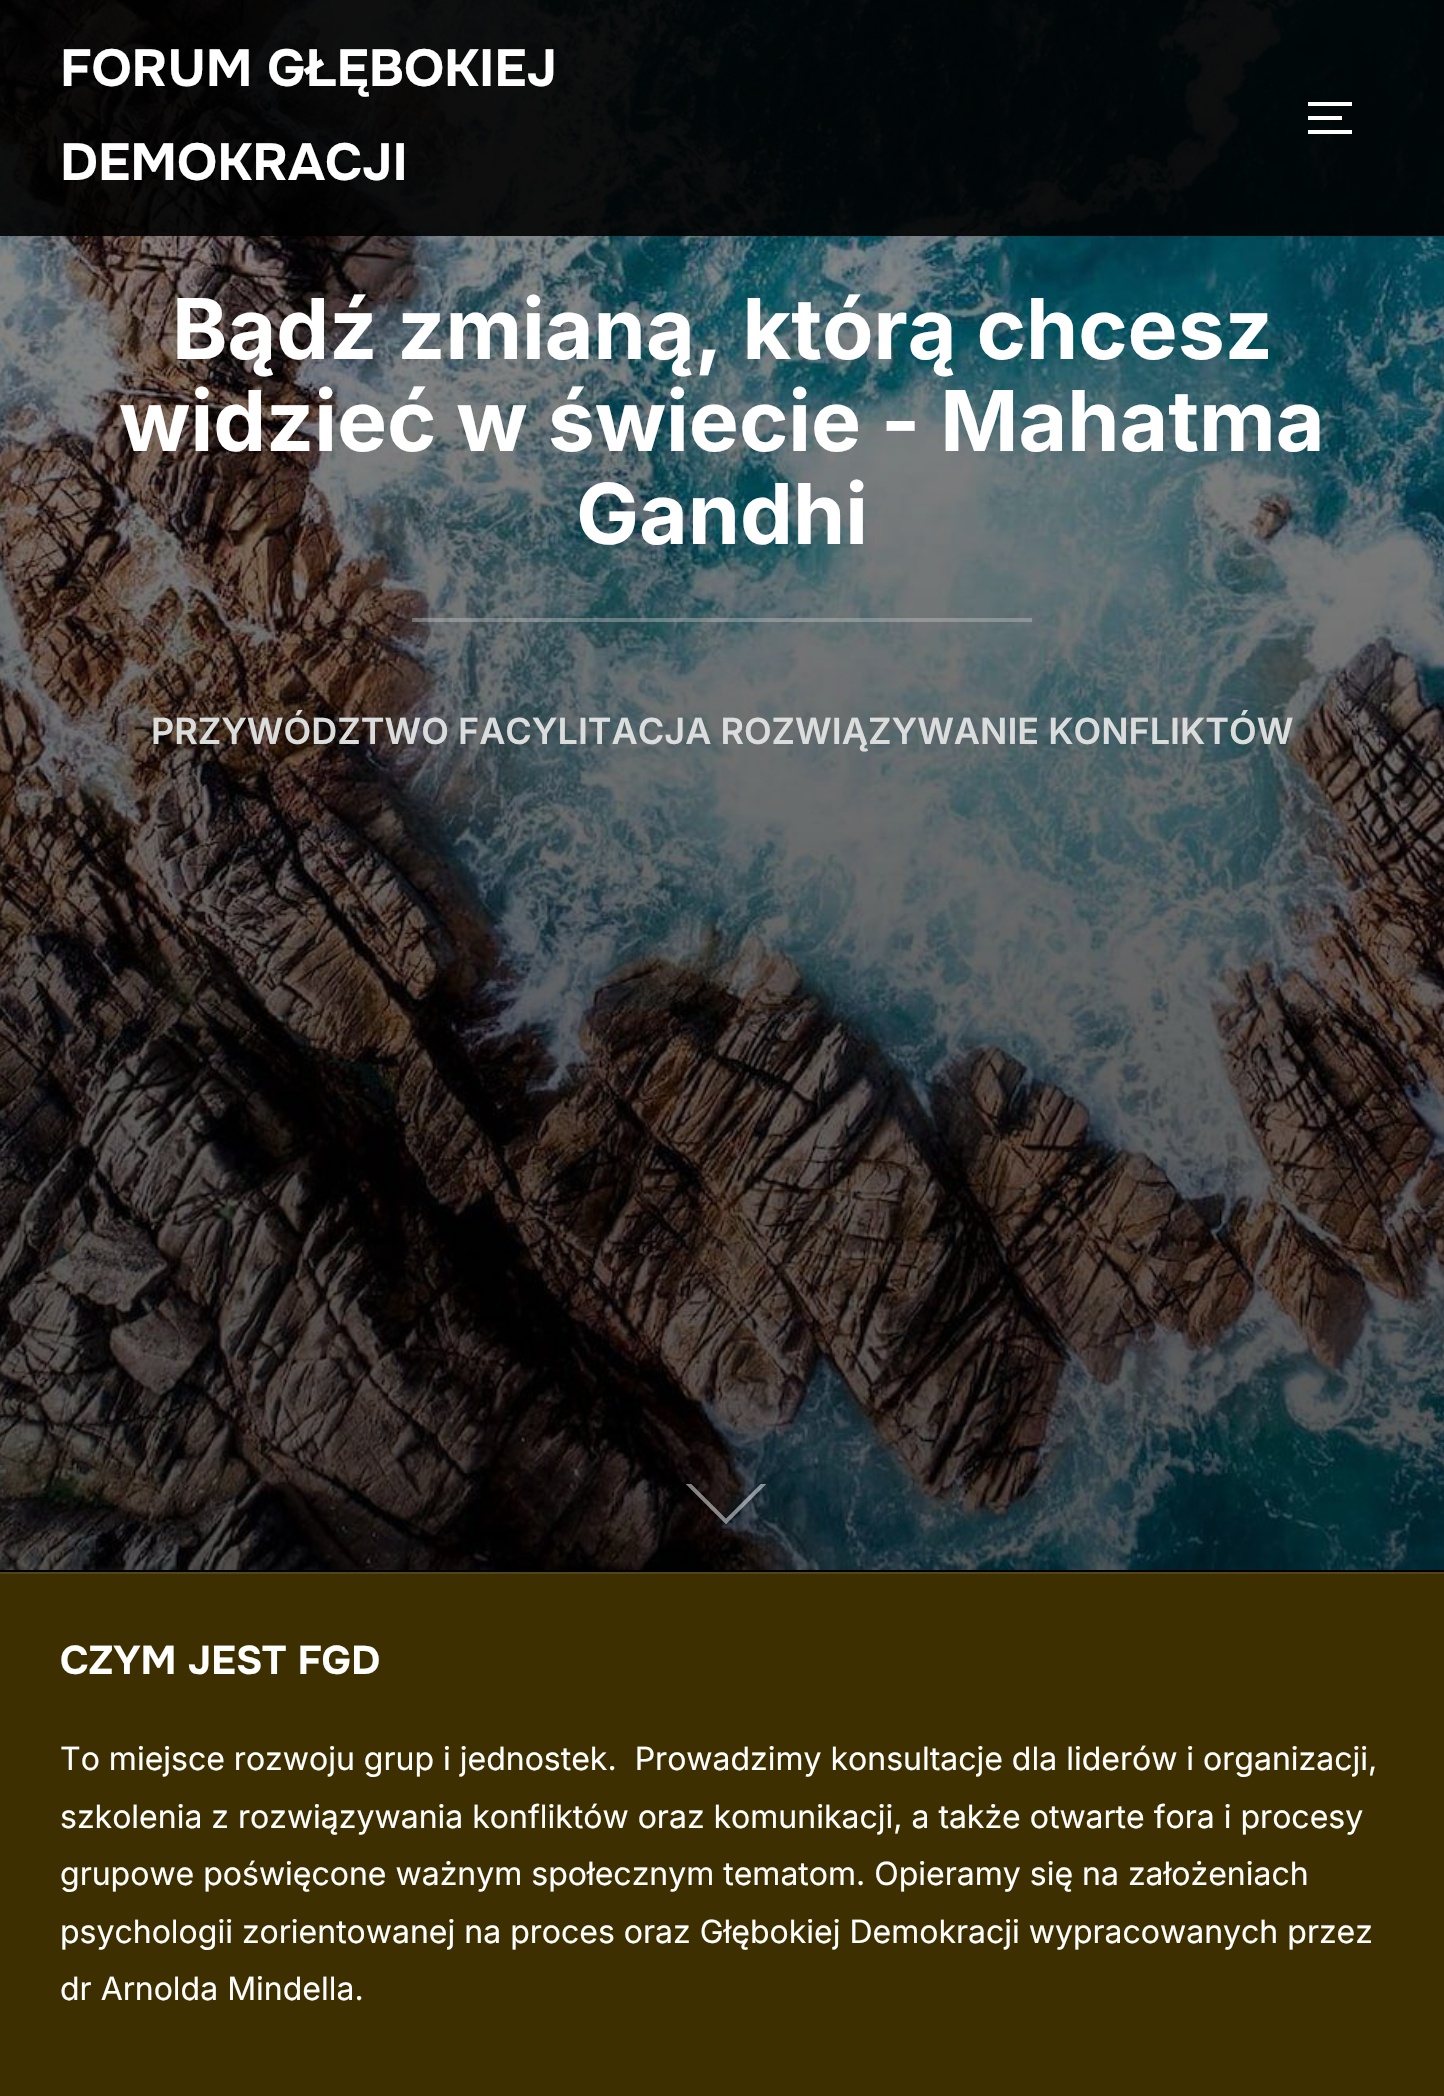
void draw(SkCanvas* canvas) {
	SkPaint paint;
	paint.setAntiAlias(true);
	auto svgPath = [&](const char* data, bool evenOdd = false) {
		SkPath result = *SkParsePath::FromSVGString(data);
		if (evenOdd) result.setFillType(SkPathFillType::kEvenOdd);
		return result;
	};
	canvas->clear(0xff000000);
	canvas->drawImageRect(SkImages::DeferredFromEncodedData(SkData::MakeFromFileName("img1.png")), SkRect::MakeXYWH(0, 0, 1444, 1570), SkSamplingOptions());
	paint.setColor(0xe6000000);
	canvas->drawRect(SkRect::MakeXYWH(0, 0, 1444, 236), paint);
	SkFont f1(fontMgr->matchFamilyStyle("Onest", SkFontStyle::Bold()), 52);
	f1.setSubpixel(true);
	paint.setColor(0xffffffff);
	canvas->drawString("FORUM GŁĘBOKIEJ", 60, 86, f1, paint);
	canvas->drawString("DEMOKRACJI", 60, 180, f1, paint);
	canvas->drawRect(SkRect::MakeXYWH(1308, 102, 44, 4), paint);
	canvas->drawRect(SkRect::MakeXYWH(1308, 116, 34, 4), paint);
	canvas->drawRect(SkRect::MakeXYWH(1308, 130, 44, 4), paint);
	SkFont f2(fontMgr->matchFamilyStyle("Inter", SkFontStyle::Bold()), 84);
	f2.setSubpixel(true);
	canvas->drawString("Bądź zmianą, którą chcesz", 172, 359, f2, paint);
	canvas->drawString("widzieć w świecie - Mahatma", 119, 451, f2, paint);
	canvas->drawString("Gandhi", 576, 544, f2, paint);
	paint.setColor(0x66c9c9c9);
	canvas->drawRect(SkRect::MakeXYWH(412, 618, 620, 4), paint);
	SkFont f3(fontMgr->matchFamilyStyle("Inter", SkFontStyle(600, SkFontStyle::kNormal_Width, SkFontStyle::kUpright_Slant)), 36);
	f3.setSubpixel(true);
	paint.setColor(0xffdbdddd);
	canvas->drawString("PRZYWÓDZTWO FACYLITACJA ROZWIĄZYWANIE KONFLIKTÓW", 151, 744, f3, paint);
	canvas->save();
	canvas->clipRect(SkRect::MakeXYWH(666, 1484, 112, 48));
	paint.setStroke(true);
	paint.setStrokeWidth(4);
	paint.setColor(0x80ffffff);
	canvas->drawPath(svgPath("M726 1442.5L765.5 1482L726 1521.5L686.5 1482Z"), paint);
	canvas->restore();
	paint.setStroke(false);
	paint.setColor(0xff3d2f00);
	canvas->drawRect(SkRect::MakeXYWH(0, 1574, 1444, 522), paint);
	paint.setColor(0xff50441a);
	canvas->drawRect(SkRect::MakeXYWH(0, 1572, 1444, 2), paint);
	SkFont f4(fontMgr->matchFamilyStyle("Onest", SkFontStyle::Bold()), 40);
	f4.setSubpixel(true);
	paint.setColor(0xffffffff);
	canvas->drawString("CZYM JEST FGD", 60, 1674, f4, paint);
	SkFont f5(fontMgr->matchFamilyStyle("Inter", SkFontStyle::Normal()), 32);
	f5.setSubpixel(true);
	canvas->drawString("To miejsce rozwoju grup i jednostek.  Prowadzimy konsultacje dla liderów i organizacji,", 60, 1770, f5, paint);
	canvas->drawString("szkolenia z rozwiązywania konfliktów oraz komunikacji, a także otwarte fora i procesy", 60, 1828, f5, paint);
	canvas->drawString("grupowe poświęcone ważnym społecznym tematom. Opieramy się na założeniach", 60, 1885, f5, paint);
	canvas->drawString("psychologii zorientowanej na proces oraz Głębokiej Demokracji wypracowanych przez", 60, 1943, f5, paint);
	canvas->drawString("dr Arnolda Mindella.", 60, 2000, f5, paint);
}
